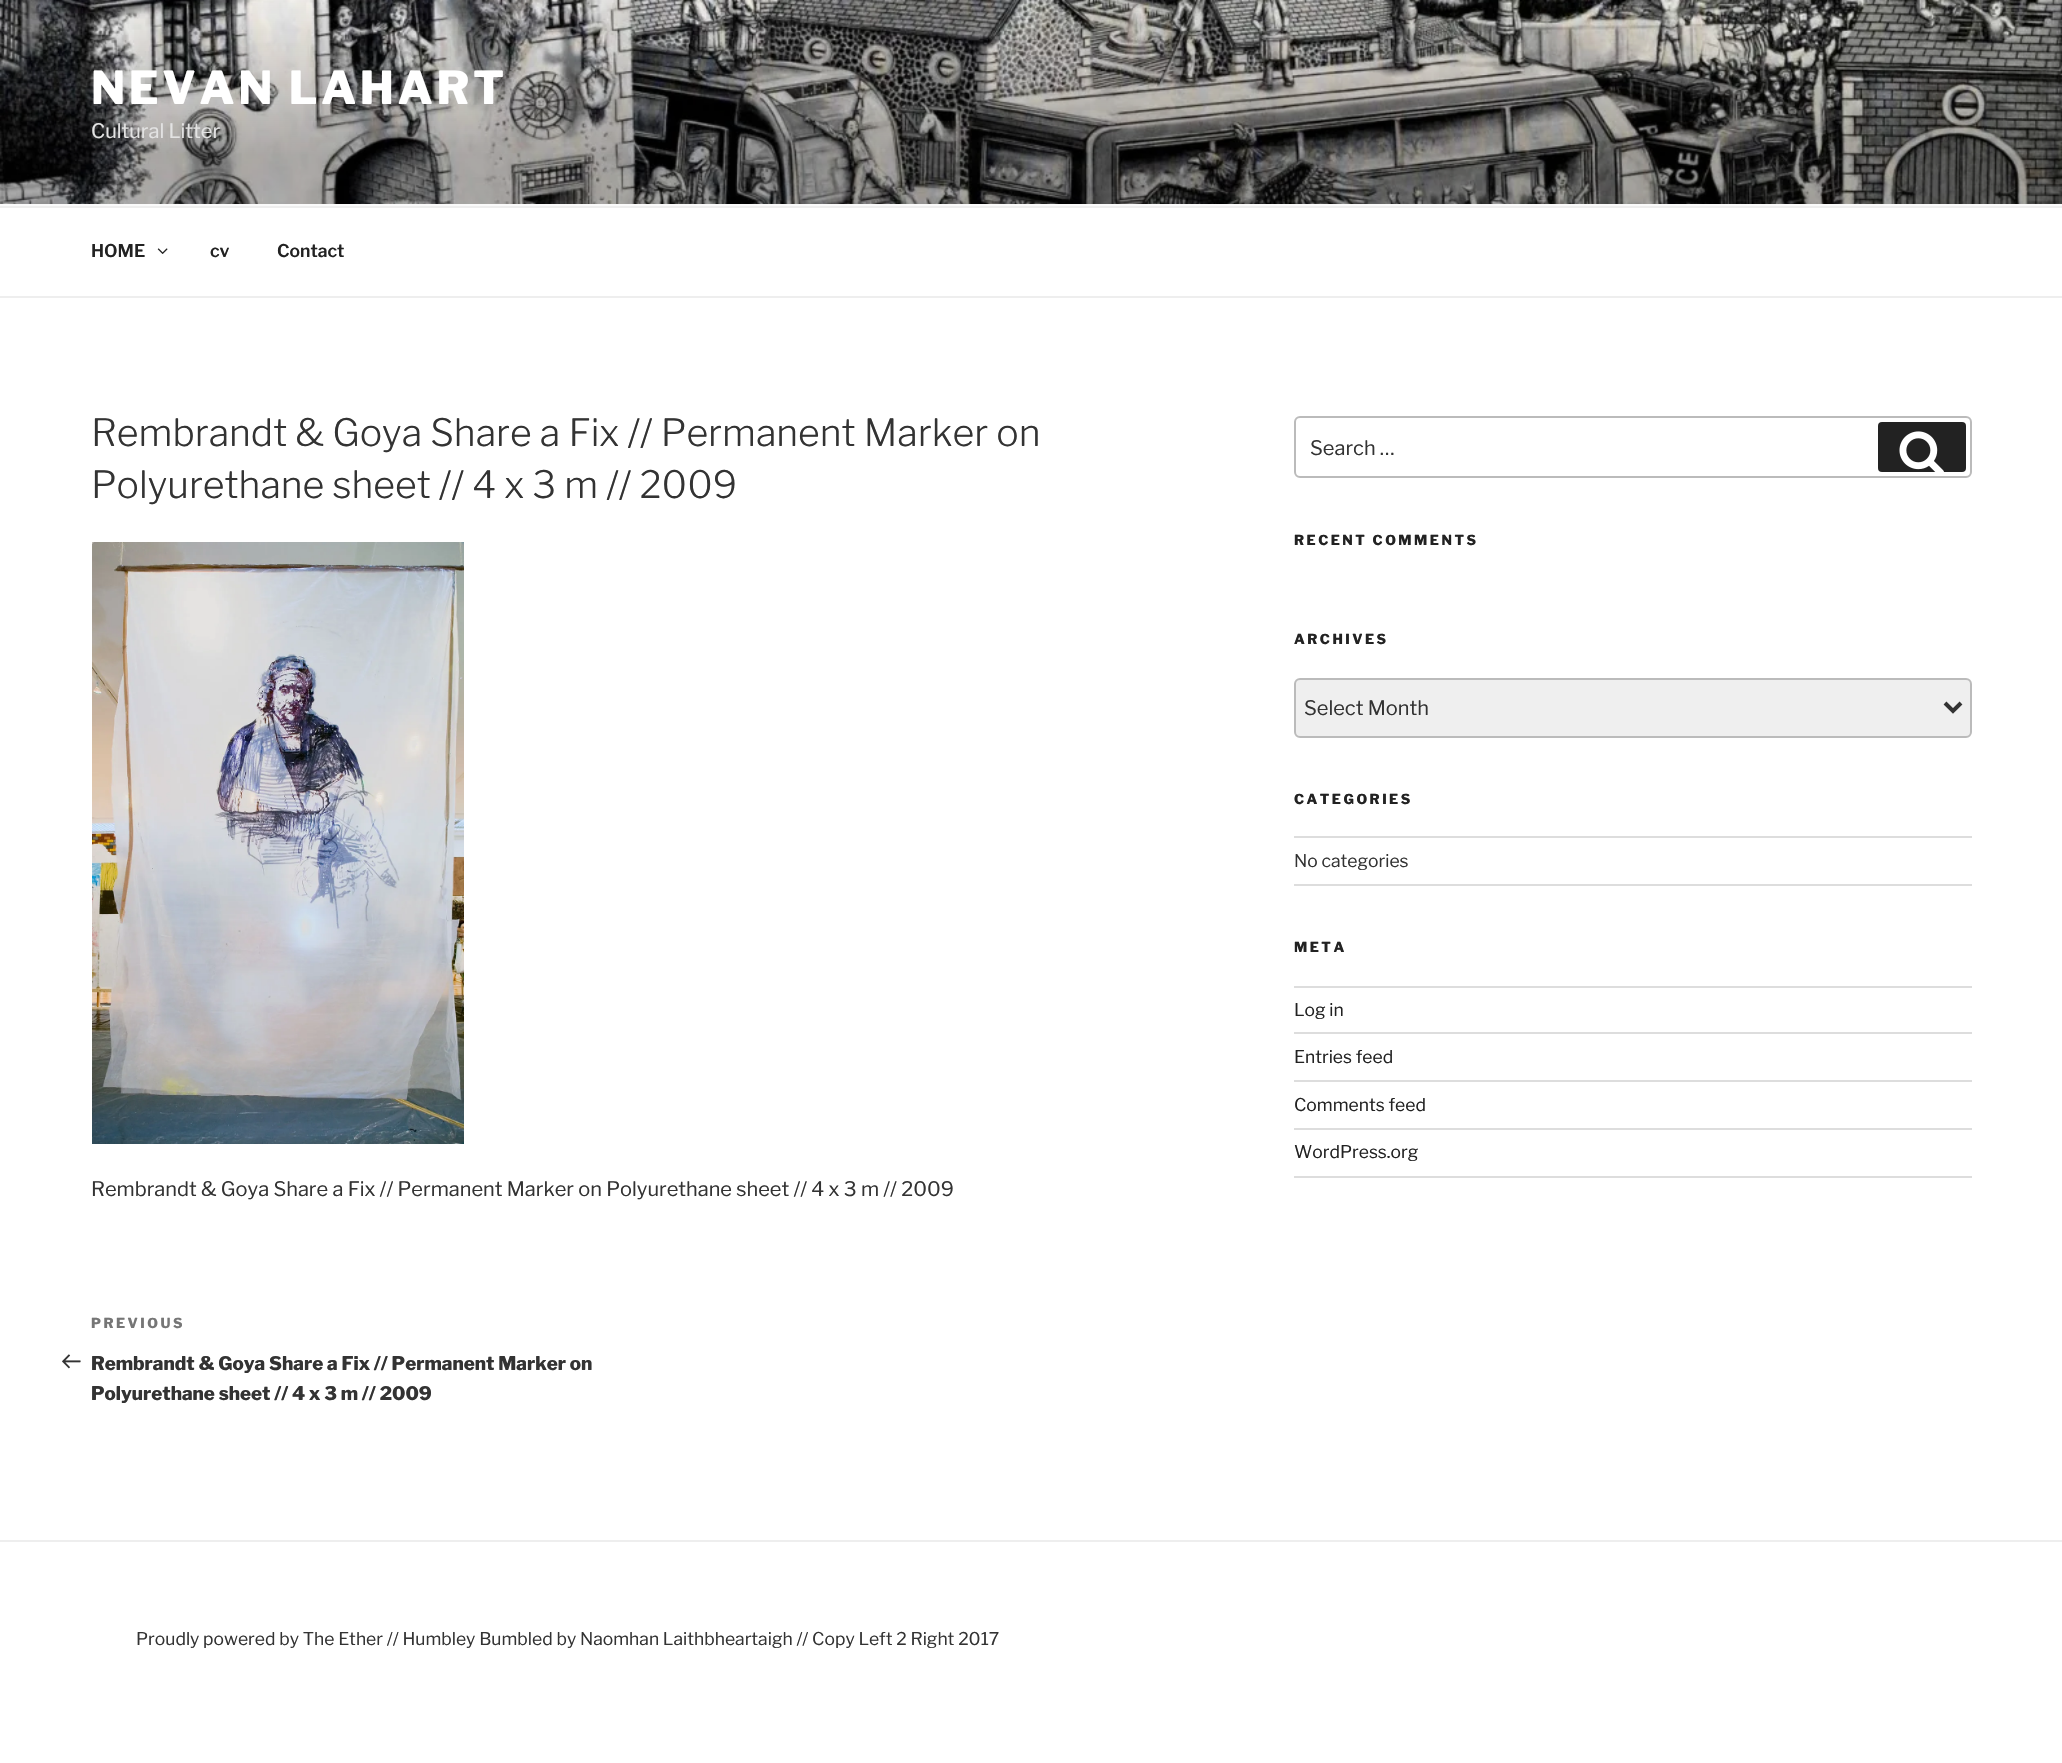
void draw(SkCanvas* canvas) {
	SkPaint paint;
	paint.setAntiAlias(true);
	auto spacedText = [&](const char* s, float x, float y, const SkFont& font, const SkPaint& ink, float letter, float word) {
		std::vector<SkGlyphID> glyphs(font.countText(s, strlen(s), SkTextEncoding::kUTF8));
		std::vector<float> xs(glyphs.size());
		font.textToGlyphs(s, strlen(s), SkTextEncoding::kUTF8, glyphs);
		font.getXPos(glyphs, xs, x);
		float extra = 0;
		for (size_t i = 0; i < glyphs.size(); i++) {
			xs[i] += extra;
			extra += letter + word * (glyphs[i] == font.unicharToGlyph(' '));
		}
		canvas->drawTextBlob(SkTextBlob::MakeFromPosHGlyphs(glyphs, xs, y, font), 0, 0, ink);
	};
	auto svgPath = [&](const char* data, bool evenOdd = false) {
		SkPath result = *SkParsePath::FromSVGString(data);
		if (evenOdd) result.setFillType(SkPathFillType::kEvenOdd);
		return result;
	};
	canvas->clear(0xffffffff);
	paint.setColor(0xfffafafa);
	canvas->drawRect(SkRect::MakeXYWH(0, 204, 2062, 2), paint);
	canvas->drawImageRect(SkImages::DeferredFromEncodedData(SkData::MakeFromFileName("img1.png")), SkRect::MakeXYWH(0, 0, 2062, 204), SkSamplingOptions());
	SkFont f1(fontMgr->matchFamilyStyle("Libre Franklin", SkFontStyle(800, SkFontStyle::kNormal_Width, SkFontStyle::kUpright_Slant)), 45);
	f1.setSubpixel(true);
	paint.setColor(0xffffffff);
	spacedText("NEVAN LAHART", 91, 104, f1, paint, 3.6, 0);
	SkFont f2(fontMgr->matchFamilyStyle("Libre Franklin", SkFontStyle::Normal()), 20);
	f2.setSubpixel(true);
	paint.setColor(0xffe3e3e3);
	canvas->drawString("Cultural Litter", 91, 138, f2, paint);
	paint.setColor(0xffeeeeee);
	canvas->drawRect(SkRect::MakeXYWH(0, 206, 2062, 2), paint);
	canvas->drawRect(SkRect::MakeXYWH(0, 296, 2062, 2), paint);
	SkFont f3(fontMgr->matchFamilyStyle("Libre Franklin", SkFontStyle(600, SkFontStyle::kNormal_Width, SkFontStyle::kUpright_Slant)), 17.5);
	f3.setSubpixel(true);
	paint.setColor(0xff222222);
	canvas->drawString("HOME", 91, 257, f3, paint);
	canvas->drawImageRect(SkImages::DeferredFromEncodedData(SkData::MakeFromFileName("img2.png")), SkRect::MakeXYWH(157, 248, 11, 6), SkSamplingOptions());
	canvas->drawString("cv", 210, 257, f3, paint);
	canvas->drawString("Contact", 277, 257, f3, paint);
	SkFont f4(fontMgr->matchFamilyStyle("Libre Franklin", SkFontStyle(300, SkFontStyle::kNormal_Width, SkFontStyle::kUpright_Slant)), 37.5);
	f4.setSubpixel(true);
	paint.setColor(0xff333333);
	canvas->drawString("Rembrandt & Goya Share a Fix // Permanent Marker on", 91, 446, f4, paint);
	canvas->drawString("Polyurethane sheet // 4 x 3 m // 2009", 91, 498, f4, paint);
	canvas->drawImageRect(SkImages::DeferredFromEncodedData(SkData::MakeFromFileName("img3.png")), SkRect::MakeXYWH(92, 542, 372, 602), SkSamplingOptions());
	canvas->drawString("Rembrandt & Goya Share a Fix // Permanent Marker on Polyurethane sheet // 4 x 3 m // 2009", 91, 1196, f2, paint);
	SkFont f5(fontMgr->matchFamilyStyle("Libre Franklin", SkFontStyle(800, SkFontStyle::kNormal_Width, SkFontStyle::kUpright_Slant)), 13.75);
	f5.setSubpixel(true);
	paint.setColor(0xff767676);
	spacedText("PREVIOUS", 91, 1328, f5, paint, 2.5, 0);
	canvas->drawImageRect(SkImages::DeferredFromEncodedData(SkData::MakeFromFileName("img4.png")), SkRect::MakeXYWH(62, 1354, 19, 15), SkSamplingOptions());
	SkFont f6(fontMgr->matchFamilyStyle("Libre Franklin", SkFontStyle(800, SkFontStyle::kNormal_Width, SkFontStyle::kUpright_Slant)), 18.75);
	f6.setSubpixel(true);
	paint.setColor(0xff333333);
	canvas->drawString("Rembrandt & Goya Share a Fix // Permanent Marker on", 91, 1370, f6, paint);
	canvas->drawString("Polyurethane sheet // 4 x 3 m // 2009", 91, 1400, f6, paint);
	paint.setStroke(true);
	paint.setStrokeWidth(2);
	paint.setColor(0xffbbbbbb);
	canvas->drawRoundRect(SkRect::MakeXYWH(1295, 417, 676, 60), 5, 5, paint);
	paint.setStroke(false);
	paint.setColor(0xff333333);
	canvas->drawString("Search …", 1310, 455, f2, paint);
	paint.setColor(0xff222222);
	canvas->drawRoundRect(SkRect::MakeXYWH(1878, 422, 88, 50), 4, 4, paint);
	canvas->drawImageRect(SkImages::DeferredFromEncodedData(SkData::MakeFromFileName("img5.png")), SkRect::MakeXYWH(1899, 431, 45, 41), SkSamplingOptions());
	spacedText("RECENT COMMENTS", 1294, 545, f5, paint, 2.5, 0);
	spacedText("ARCHIVES", 1294, 644, f5, paint, 2.5, 0);
	paint.setColor(0xffefefef);
	canvas->drawRoundRect(SkRect::MakeXYWH(1295, 679, 676, 58), 5, 5, paint);
	paint.setStroke(true);
	paint.setColor(0xffbbbbbb);
	canvas->drawRoundRect(SkRect::MakeXYWH(1295, 679, 676, 58), 5, 5, paint);
	paint.setStrokeWidth(4);
	paint.setColor(0xff333333);
	canvas->drawPath(svgPath("M1945 703L1953 711L1961 703"), paint);
	paint.setStroke(false);
	canvas->drawString("Select Month", 1304, 715, f2, paint);
	paint.setColor(0xff222222);
	spacedText("CATEGORIES", 1294, 804, f5, paint, 2.5, 0);
	paint.setColor(0xffdddddd);
	canvas->drawRect(SkRect::MakeXYWH(1294, 836, 678, 2), paint);
	canvas->drawRect(SkRect::MakeXYWH(1294, 884, 678, 2), paint);
	SkFont f7(fontMgr->matchFamilyStyle("Libre Franklin", SkFontStyle::Normal()), 17.5);
	f7.setSubpixel(true);
	paint.setColor(0xff333333);
	canvas->drawString("No categories", 1294, 867, f7, paint);
	paint.setColor(0xff222222);
	spacedText("META", 1294, 952, f5, paint, 2.5, 0);
	paint.setColor(0xffdddddd);
	canvas->drawRect(SkRect::MakeXYWH(1294, 986, 678, 2), paint);
	canvas->drawRect(SkRect::MakeXYWH(1294, 1032, 678, 2), paint);
	paint.setColor(0xff222222);
	canvas->drawString("Log in", 1294, 1016, f7, paint);
	paint.setColor(0xffdddddd);
	canvas->drawRect(SkRect::MakeXYWH(1294, 1080, 678, 2), paint);
	paint.setColor(0xff222222);
	canvas->drawString("Entries feed", 1294, 1063, f7, paint);
	paint.setColor(0xffdddddd);
	canvas->drawRect(SkRect::MakeXYWH(1294, 1128, 678, 2), paint);
	paint.setColor(0xff222222);
	canvas->drawString("Comments feed", 1294, 1111, f7, paint);
	paint.setColor(0xffdddddd);
	canvas->drawRect(SkRect::MakeXYWH(1294, 1176, 678, 2), paint);
	paint.setColor(0xff222222);
	canvas->drawString("WordPress.org", 1294, 1158, f7, paint);
	paint.setColor(0xffeeeeee);
	canvas->drawRect(SkRect::MakeXYWH(0, 1540, 2062, 2), paint);
	paint.setColor(0xff333333);
	canvas->drawString("Proudly powered by The Ether // Humbley Bumbled by Naomhan Laithbheartaigh // Copy Left 2 Right 2017", 136, 1645, f7, paint);
}
